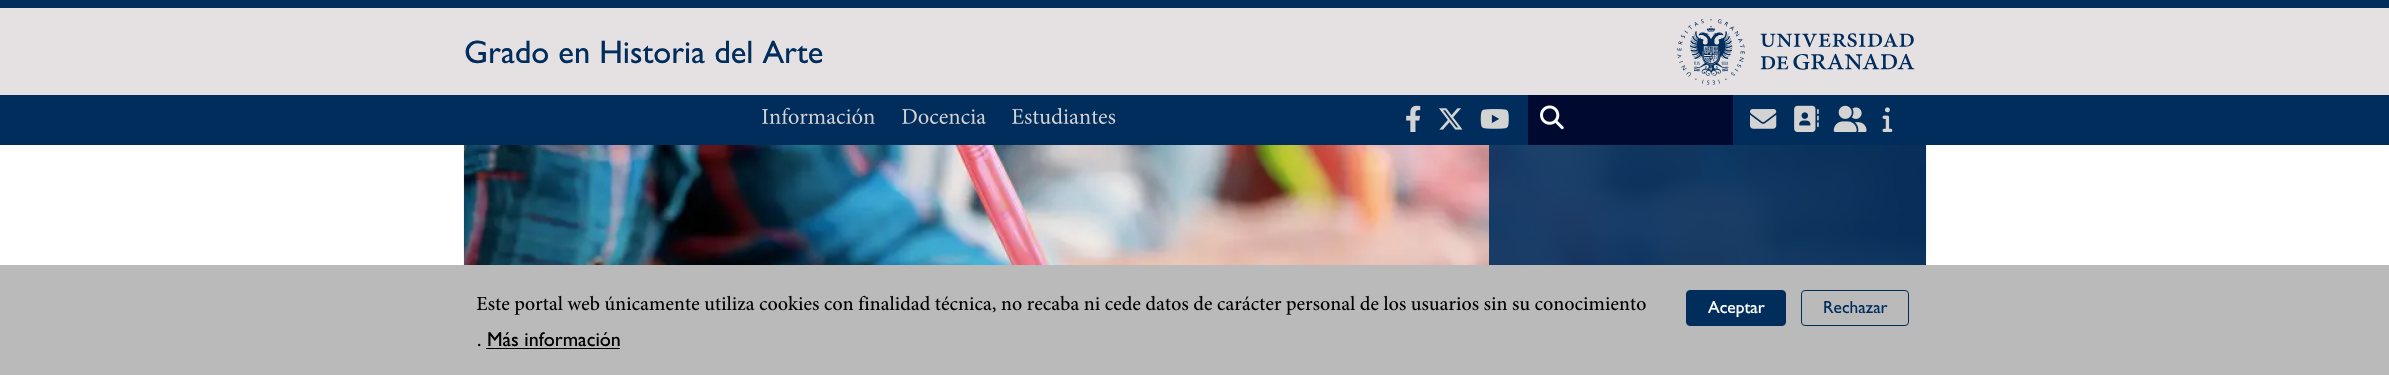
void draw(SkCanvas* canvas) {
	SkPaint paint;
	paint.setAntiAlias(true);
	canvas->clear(0xffffffff);
	paint.setColor(0xff012d5c);
	canvas->drawRect(SkRect::MakeXYWH(0, 0, 2389, 8), paint);
	canvas->drawRect(SkRect::MakeXYWH(0, 95, 2389, 50), paint);
	paint.setColor(0xffe5e1e2);
	canvas->drawRect(SkRect::MakeXYWH(0, 8, 2389, 87), paint);
	SkFont f1(fontMgr->matchFamilyStyle("Gill Sans", SkFontStyle::Normal()), 32.5);
	f1.setSubpixel(true);
	paint.setColor(0xff012d5c);
	canvas->drawString("Grado en Historia del Arte", 464, 63, f1, paint);
	canvas->drawImageRect(SkImages::DeferredFromEncodedData(SkData::MakeFromFileName("img1.png")), SkRect::MakeXYWH(1677, 19, 238, 66), SkSamplingOptions());
	canvas->drawImageRect(SkImages::DeferredFromEncodedData(SkData::MakeFromFileName("img2.png")), SkRect::MakeXYWH(762, 107, 113, 17), SkSamplingOptions());
	canvas->drawImageRect(SkImages::DeferredFromEncodedData(SkData::MakeFromFileName("img3.png")), SkRect::MakeXYWH(902, 109, 84, 15), SkSamplingOptions());
	canvas->drawImageRect(SkImages::DeferredFromEncodedData(SkData::MakeFromFileName("img4.png")), SkRect::MakeXYWH(1011, 107, 105, 17), SkSamplingOptions());
	canvas->drawImageRect(SkImages::DeferredFromEncodedData(SkData::MakeFromFileName("img5.png")), SkRect::MakeXYWH(1406, 105, 15, 27), SkSamplingOptions());
	canvas->drawImageRect(SkImages::DeferredFromEncodedData(SkData::MakeFromFileName("img6.png")), SkRect::MakeXYWH(1439, 108, 24, 22), SkSamplingOptions());
	canvas->drawImageRect(SkImages::DeferredFromEncodedData(SkData::MakeFromFileName("img7.png")), SkRect::MakeXYWH(1480, 109, 29, 20), SkSamplingOptions());
	paint.setColor(0xff00092f);
	canvas->drawRect(SkRect::MakeXYWH(1528, 95, 205, 50), paint);
	canvas->drawImageRect(SkImages::DeferredFromEncodedData(SkData::MakeFromFileName("img8.png")), SkRect::MakeXYWH(1540, 105, 24, 25), SkSamplingOptions());
	canvas->drawImageRect(SkImages::DeferredFromEncodedData(SkData::MakeFromFileName("img9.png")), SkRect::MakeXYWH(1750, 109, 27, 20), SkSamplingOptions());
	canvas->drawImageRect(SkImages::DeferredFromEncodedData(SkData::MakeFromFileName("img10.png")), SkRect::MakeXYWH(1794, 105, 25, 27), SkSamplingOptions());
	canvas->drawImageRect(SkImages::DeferredFromEncodedData(SkData::MakeFromFileName("img11.png")), SkRect::MakeXYWH(1833, 105, 34, 27), SkSamplingOptions());
	canvas->drawImageRect(SkImages::DeferredFromEncodedData(SkData::MakeFromFileName("img12.png")), SkRect::MakeXYWH(1882, 107, 11, 25), SkSamplingOptions());
	canvas->drawImageRect(SkImages::DeferredFromEncodedData(SkData::MakeFromFileName("img13.png")), SkRect::MakeXYWH(463, 145, 1464, 120), SkSamplingOptions());
	paint.setColor(0xe3012d5c);
	canvas->drawRect(SkRect::MakeXYWH(1489, 145, 437, 120), paint);
	paint.setColor(0xffbababa);
	canvas->drawRect(SkRect::MakeXYWH(0, 265, 2389, 110), paint);
	paint.setColor(0xff012d5c);
	canvas->drawRoundRect(SkRect::MakeXYWH(1686.5, 290.5, 99, 35), 3.5, 3.5, paint);
	paint.setStroke(true);
	paint.setStrokeWidth(1);
	canvas->drawRoundRect(SkRect::MakeXYWH(1686.5, 290.5, 99, 35), 3.5, 3.5, paint);
	SkFont f2(fontMgr->matchFamilyStyle("Gill Sans", SkFontStyle::Normal()), 17.5);
	f2.setSubpixel(true);
	paint.setStroke(false);
	paint.setColor(0xfffeffff);
	canvas->drawString("Aceptar", 1708, 313, f2, paint);
	paint.setStroke(true);
	paint.setColor(0xff012d5c);
	canvas->drawRoundRect(SkRect::MakeXYWH(1801.5, 290.5, 107, 35), 3.5, 3.5, paint);
	paint.setStroke(false);
	canvas->drawString("Rechazar", 1823, 313, f2, paint);
	canvas->drawImageRect(SkImages::DeferredFromEncodedData(SkData::MakeFromFileName("img14.png")), SkRect::MakeXYWH(476, 295, 1170, 20), SkSamplingOptions());
	SkFont f3(fontMgr->matchFamilyStyle("Gill Sans", SkFontStyle::Normal()), 20);
	f3.setSubpixel(true);
	paint.setColor(0xff000000);
	canvas->drawString(". Más información", 477, 346, f3, paint);
	canvas->drawRect(SkRect::MakeXYWH(486, 348, 134, 1), paint);
}
